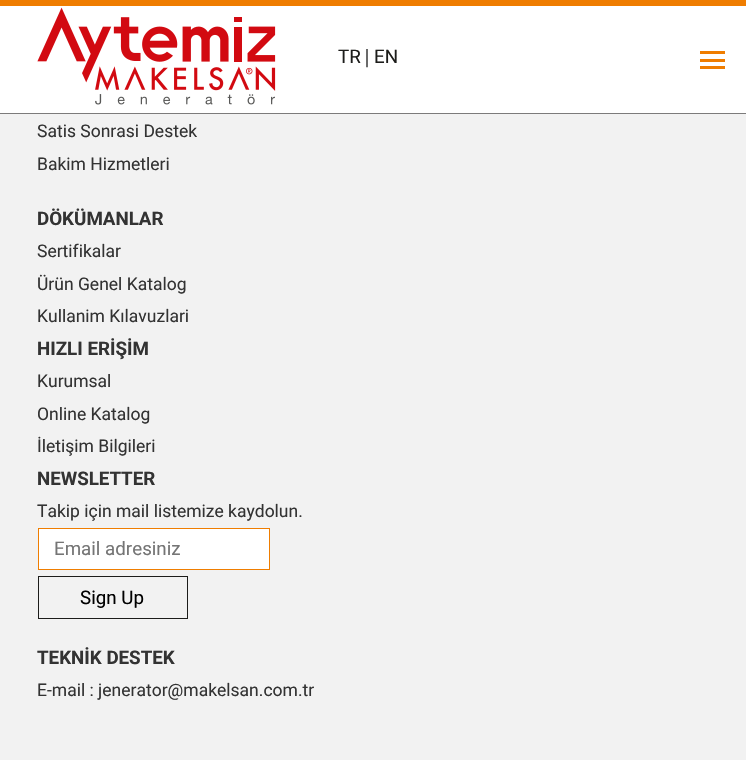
void draw(SkCanvas* canvas) {
	SkPaint paint;
	paint.setAntiAlias(true);
	canvas->clear(0xfff2f2f2);
	paint.setColor(0xffffffff);
	canvas->drawRect(SkRect::MakeXYWH(0, 6, 746, 107), paint);
	paint.setColor(0xff7c7b7b);
	canvas->drawRect(SkRect::MakeXYWH(0, 113, 746, 1), paint);
	paint.setColor(0xffef7d00);
	canvas->drawRect(SkRect::MakeXYWH(0, 0, 746, 6), paint);
	canvas->drawImageRect(SkImages::DeferredFromEncodedData(SkData::MakeFromFileName("img1.png")), SkRect::MakeXYWH(37, 7, 239, 98), SkSamplingOptions());
	SkFont f1(fontMgr->matchFamilyStyle("Roboto", SkFontStyle::Normal()), 18.75);
	f1.setSubpixel(true);
	paint.setColor(0xff1d1d1b);
	canvas->drawString("TR", 338, 63, f1, paint);
	SkFont f2(fontMgr->matchFamilyStyle("Liberation Serif", SkFontStyle::Normal()), 20);
	f2.setSubpixel(true);
	paint.setColor(0xff000000);
	canvas->drawString("|", 365, 63, f2, paint);
	paint.setColor(0xff1d1d1b);
	canvas->drawString("EN", 374, 63, f1, paint);
	paint.setColor(0xffef7d00);
	canvas->drawRect(SkRect::MakeXYWH(700, 51, 25, 3), paint);
	canvas->drawRect(SkRect::MakeXYWH(700, 59, 25, 3), paint);
	canvas->drawRect(SkRect::MakeXYWH(700, 66, 25, 3), paint);
	SkFont f3(fontMgr->matchFamilyStyle("Roboto", SkFontStyle::Normal()), 17.5);
	f3.setSubpixel(true);
	paint.setColor(0xff333333);
	canvas->drawString("Satis Sonrasi Destek", 37, 137, f3, paint);
	canvas->drawString("Bakim Hizmetleri", 37, 170, f3, paint);
	SkFont f4(fontMgr->matchFamilyStyle("Roboto", SkFontStyle::Bold()), 18.75);
	f4.setSubpixel(true);
	canvas->drawString("DÖKÜMANLAR", 37, 225, f4, paint);
	canvas->drawString("Sertifikalar", 37, 257, f3, paint);
	canvas->drawString("Ürün Genel Katalog", 37, 290, f3, paint);
	canvas->drawString("Kullanim Kılavuzlari", 37, 322, f3, paint);
	canvas->drawString("HIZLI ERİŞİM", 37, 355, f4, paint);
	canvas->drawString("Kurumsal", 37, 387, f3, paint);
	canvas->drawString("Online Katalog", 37, 420, f3, paint);
	canvas->drawString("İletişim Bilgileri", 37, 452, f3, paint);
	canvas->drawString("NEWSLETTER", 37, 485, f4, paint);
	canvas->drawString("Takip için mail listemize kaydolun.", 37, 517, f3, paint);
	paint.setColor(0xffffffff);
	canvas->drawRect(SkRect::MakeXYWH(38.5, 528.5, 231, 41), paint);
	paint.setStroke(true);
	paint.setStrokeWidth(1);
	paint.setColor(0xffef7d00);
	canvas->drawRect(SkRect::MakeXYWH(38.5, 528.5, 231, 41), paint);
	paint.setStroke(false);
	paint.setColor(0xff757575);
	canvas->drawString("Email adresiniz", 54, 555, f1, paint);
	paint.setStroke(true);
	paint.setColor(0xff1d1d1b);
	canvas->drawRect(SkRect::MakeXYWH(38.5, 576.5, 149, 42), paint);
	paint.setStroke(false);
	paint.setColor(0xff000000);
	canvas->drawString("Sign Up", 80, 604, f1, paint);
	paint.setColor(0xff333333);
	canvas->drawString("TEKNİK DESTEK", 37, 664, f4, paint);
	canvas->drawString("E-mail : jenerator@makelsan.com.tr", 37, 696, f3, paint);
}
